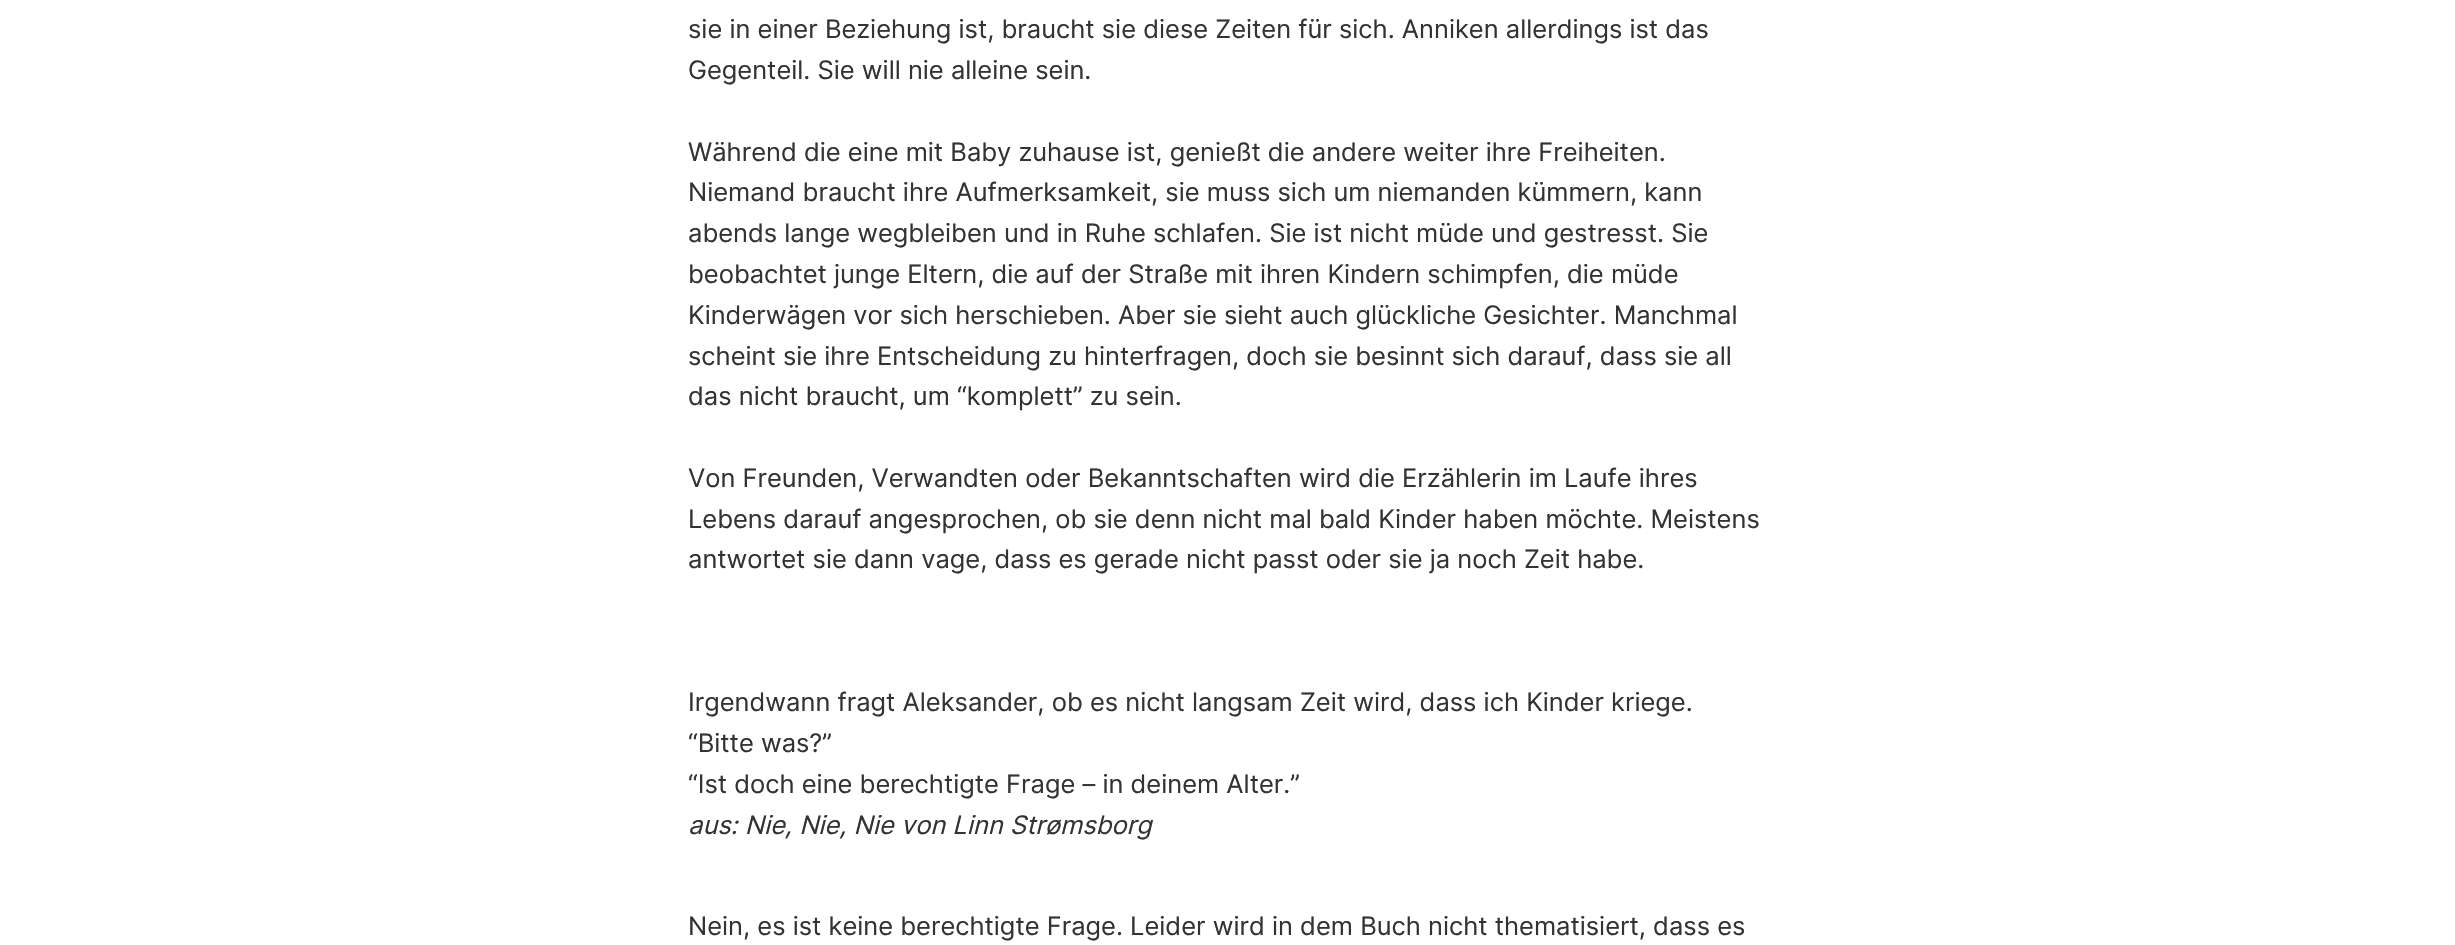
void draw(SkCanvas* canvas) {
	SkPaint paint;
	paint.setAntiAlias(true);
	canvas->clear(0xffffffff);
	SkFont f1(fontMgr->matchFamilyStyle("Inter", SkFontStyle::Normal()), 25.5);
	f1.setSubpixel(true);
	paint.setColor(0xff333333);
	canvas->drawString("sie in einer Beziehung ist, braucht sie diese Zeiten für sich. Anniken allerdings ist das", 688, 38, f1, paint);
	canvas->drawString("Gegenteil. Sie will nie alleine sein.", 688, 79, f1, paint);
	canvas->drawString("Während die eine mit Baby zuhause ist, genießt die andere weiter ihre Freiheiten.", 688, 161, f1, paint);
	canvas->drawString("Niemand braucht ihre Aufmerksamkeit, sie muss sich um niemanden kümmern, kann", 688, 201, f1, paint);
	canvas->drawString("abends lange wegbleiben und in Ruhe schlafen. Sie ist nicht müde und gestresst. Sie", 688, 242, f1, paint);
	canvas->drawString("beobachtet junge Eltern, die auf der Straße mit ihren Kindern schimpfen, die müde", 688, 283, f1, paint);
	canvas->drawString("Kinderwägen vor sich herschieben. Aber sie sieht auch glückliche Gesichter. Manchmal", 688, 324, f1, paint);
	canvas->drawString("scheint sie ihre Entscheidung zu hinterfragen, doch sie besinnt sich darauf, dass sie all", 688, 365, f1, paint);
	canvas->drawString("das nicht braucht, um “komplett” zu sein.", 688, 405, f1, paint);
	canvas->drawString("Von Freunden, Verwandten oder Bekanntschaften wird die Erzählerin im Laufe ihres", 688, 487, f1, paint);
	canvas->drawString("Lebens darauf angesprochen, ob sie denn nicht mal bald Kinder haben möchte. Meistens", 688, 528, f1, paint);
	canvas->drawString("antwortet sie dann vage, dass es gerade nicht passt oder sie ja noch Zeit habe.", 688, 568, f1, paint);
	canvas->drawString("Irgendwann fragt Aleksander, ob es nicht langsam Zeit wird, dass ich Kinder kriege.", 688, 711, f1, paint);
	canvas->drawString("“Bitte was?”", 688, 752, f1, paint);
	canvas->drawString("“Ist doch eine berechtigte Frage – in deinem Alter.”", 688, 793, f1, paint);
	SkFont f2(fontMgr->matchFamilyStyle("Inter", SkFontStyle::Italic()), 25.5);
	f2.setSubpixel(true);
	canvas->drawString("aus: Nie, Nie, Nie von Linn Strømsborg", 688, 834, f2, paint);
	canvas->drawString("Nein, es ist keine berechtigte Frage. Leider wird in dem Buch nicht thematisiert, dass es", 688, 935, f1, paint);
}
